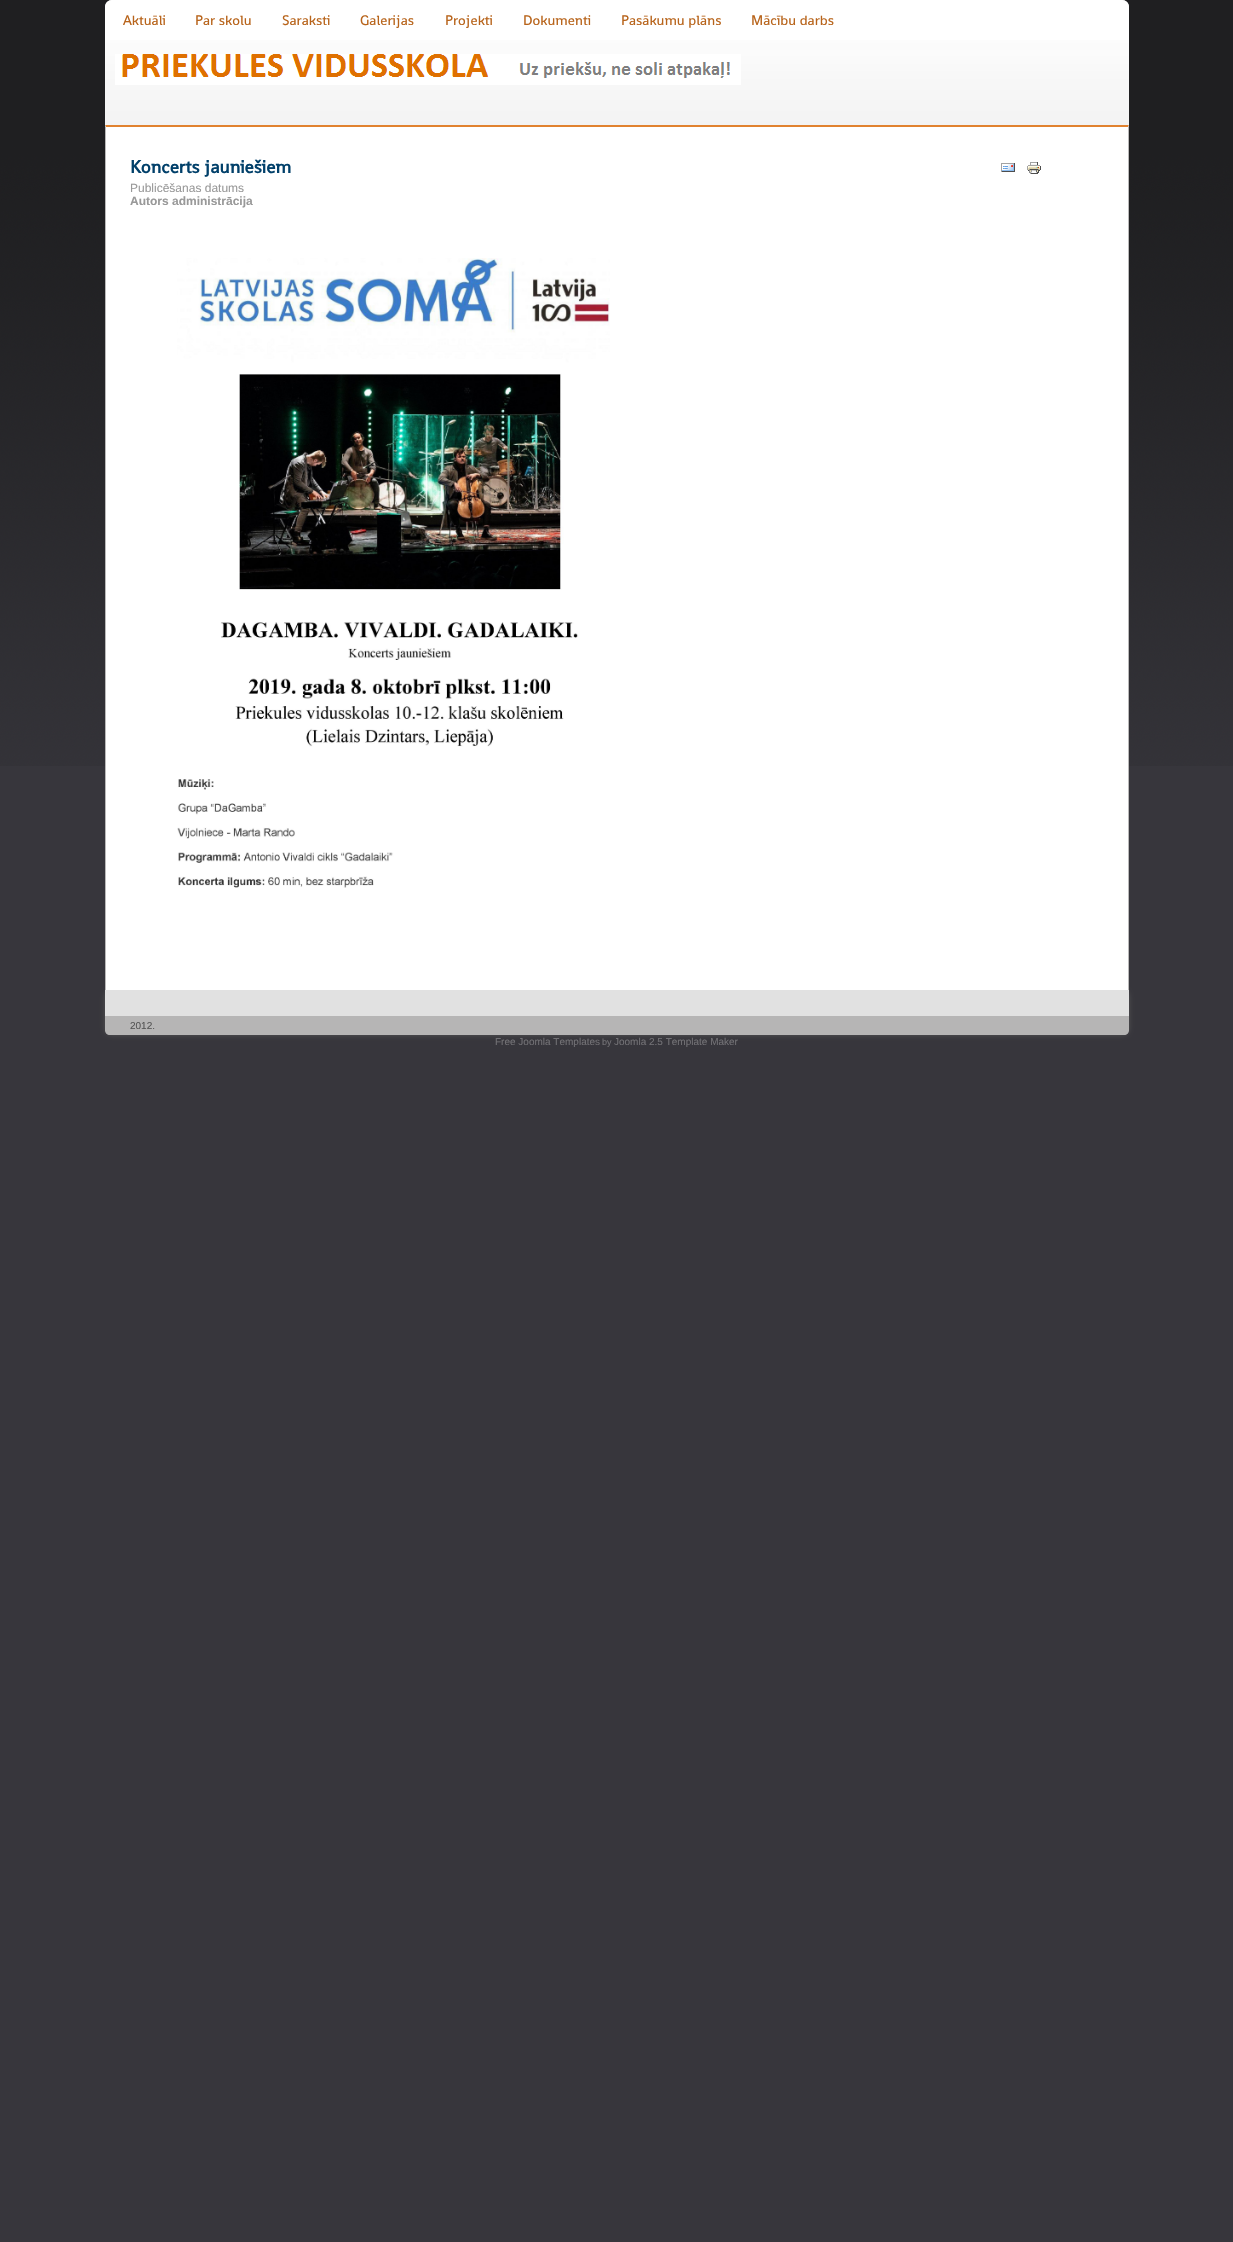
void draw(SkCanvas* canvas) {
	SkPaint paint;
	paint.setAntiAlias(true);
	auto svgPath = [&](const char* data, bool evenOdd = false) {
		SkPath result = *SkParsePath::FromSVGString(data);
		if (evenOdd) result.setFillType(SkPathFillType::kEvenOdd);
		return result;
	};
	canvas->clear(0xff37363c);
	canvas->drawImageRect(SkImages::DeferredFromEncodedData(SkData::MakeFromFileName("img1.png")), SkRect::MakeXYWH(0, 0, 1233, 766), SkSamplingOptions());
	canvas->drawImageRect(SkImages::DeferredFromEncodedData(SkData::MakeFromFileName("img2.png")), SkRect::MakeXYWH(105, 0, 1024, 125), SkSamplingOptions());
	paint.setColor(0xffffffff);
	canvas->drawPath(svgPath("M112 0H1122C1126 0 1129 3 1129 7V40H105V7C105 3 108 0 112 0Z"), paint);
	SkFont f1(fontMgr->matchFamilyStyle("Shanti", SkFontStyle::Normal()), 14);
	f1.setSubpixel(true);
	paint.setColor(0xffb8641b);
	canvas->drawString("Aktuāli", 123, 25, f1, paint);
	canvas->drawString("Par skolu", 195, 25, f1, paint);
	canvas->drawString("Saraksti", 282, 25, f1, paint);
	canvas->drawString("Galerijas", 360, 25, f1, paint);
	canvas->drawString("Projekti", 445, 25, f1, paint);
	canvas->drawString("Dokumenti", 523, 25, f1, paint);
	canvas->drawString("Pasākumu plāns", 621, 25, f1, paint);
	canvas->drawString("Mācību darbs", 751, 25, f1, paint);
	canvas->drawImageRect(SkImages::DeferredFromEncodedData(SkData::MakeFromFileName("img3.png")), SkRect::MakeXYWH(115, 54, 626, 31), SkSamplingOptions());
	paint.setColor(0xff555555);
	paint.setMaskFilter(SkMaskFilter::MakeBlur(kNormal_SkBlurStyle, 2.5));
	canvas->drawRoundRect(SkRect::MakeXYWH(105, 990, 1024, 45), 7, 7, paint);
	paint.setMaskFilter(nullptr);
	paint.setColor(0xffffffff);
	canvas->drawRect(SkRect::MakeXYWH(105, 125, 1024, 865), paint);
	paint.setColor(0xffe1822f);
	canvas->drawPath(svgPath("M105 125H1129L1128 127H106Z"), paint);
	paint.setColor(0xffbab9b9);
	canvas->drawPath(svgPath("M1129 125V990H1128V127Z"), paint);
	canvas->drawPath(svgPath("M105 990V125L106 127V990Z"), paint);
	SkFont f2(fontMgr->matchFamilyStyle("Shanti", SkFontStyle::Bold()), 18);
	f2.setSubpixel(true);
	paint.setColor(0xff01406a);
	canvas->drawString("Koncerts jauniešiem", 130, 173, f2, paint);
	canvas->drawImageRect(SkImages::DeferredFromEncodedData(SkData::MakeFromFileName("img4.png")), SkRect::MakeXYWH(1001, 163, 14, 9), SkSamplingOptions());
	canvas->drawImageRect(SkImages::DeferredFromEncodedData(SkData::MakeFromFileName("img5.png")), SkRect::MakeXYWH(1027, 162, 14, 12), SkSamplingOptions());
	SkFont f3(fontMgr->matchFamilyStyle("Liberation Sans", SkFontStyle::Normal()), 12);
	f3.setSubpixel(true);
	paint.setColor(0xff999999);
	canvas->drawString("Publicēšanas datums", 130, 192, f3, paint);
	SkFont f4(fontMgr->matchFamilyStyle("Liberation Sans", SkFontStyle::Bold()), 12);
	f4.setSubpixel(true);
	canvas->drawString("Autors administrācija", 130, 205, f4, paint);
	canvas->drawImageRect(SkImages::DeferredFromEncodedData(SkData::MakeFromFileName("img6.png")), SkRect::MakeXYWH(177, 258, 433, 630), SkSamplingOptions());
	paint.setColor(0xffe1e1e1);
	canvas->drawPath(svgPath("M105 990H1129V1028C1129 1032 1126 1035 1122 1035H112C108 1035 105 1032 105 1028Z"), paint);
	paint.setColor(0xffb6b5b5);
	canvas->drawPath(svgPath("M105 1016H1129V1030C1129 1033 1127 1035 1124 1035H110C107 1035 105 1033 105 1030Z"), paint);
	SkFont f5(fontMgr->matchFamilyStyle("Liberation Sans", SkFontStyle::Normal()), 10);
	f5.setSubpixel(true);
	paint.setColor(0xff555555);
	canvas->drawString("2012.", 130, 1029, f5, paint);
	paint.setColor(0xff727175);
	canvas->drawString("Free Joomla Templates", 495, 1045, f5, paint);
	SkFont f6(fontMgr->matchFamilyStyle("Liberation Sans", SkFontStyle::Normal()), 9);
	f6.setSubpixel(true);
	canvas->drawString("by", 602, 1045, f6, paint);
	canvas->drawString("Joomla 2.5 Template Maker", 614, 1045, f5, paint);
}
